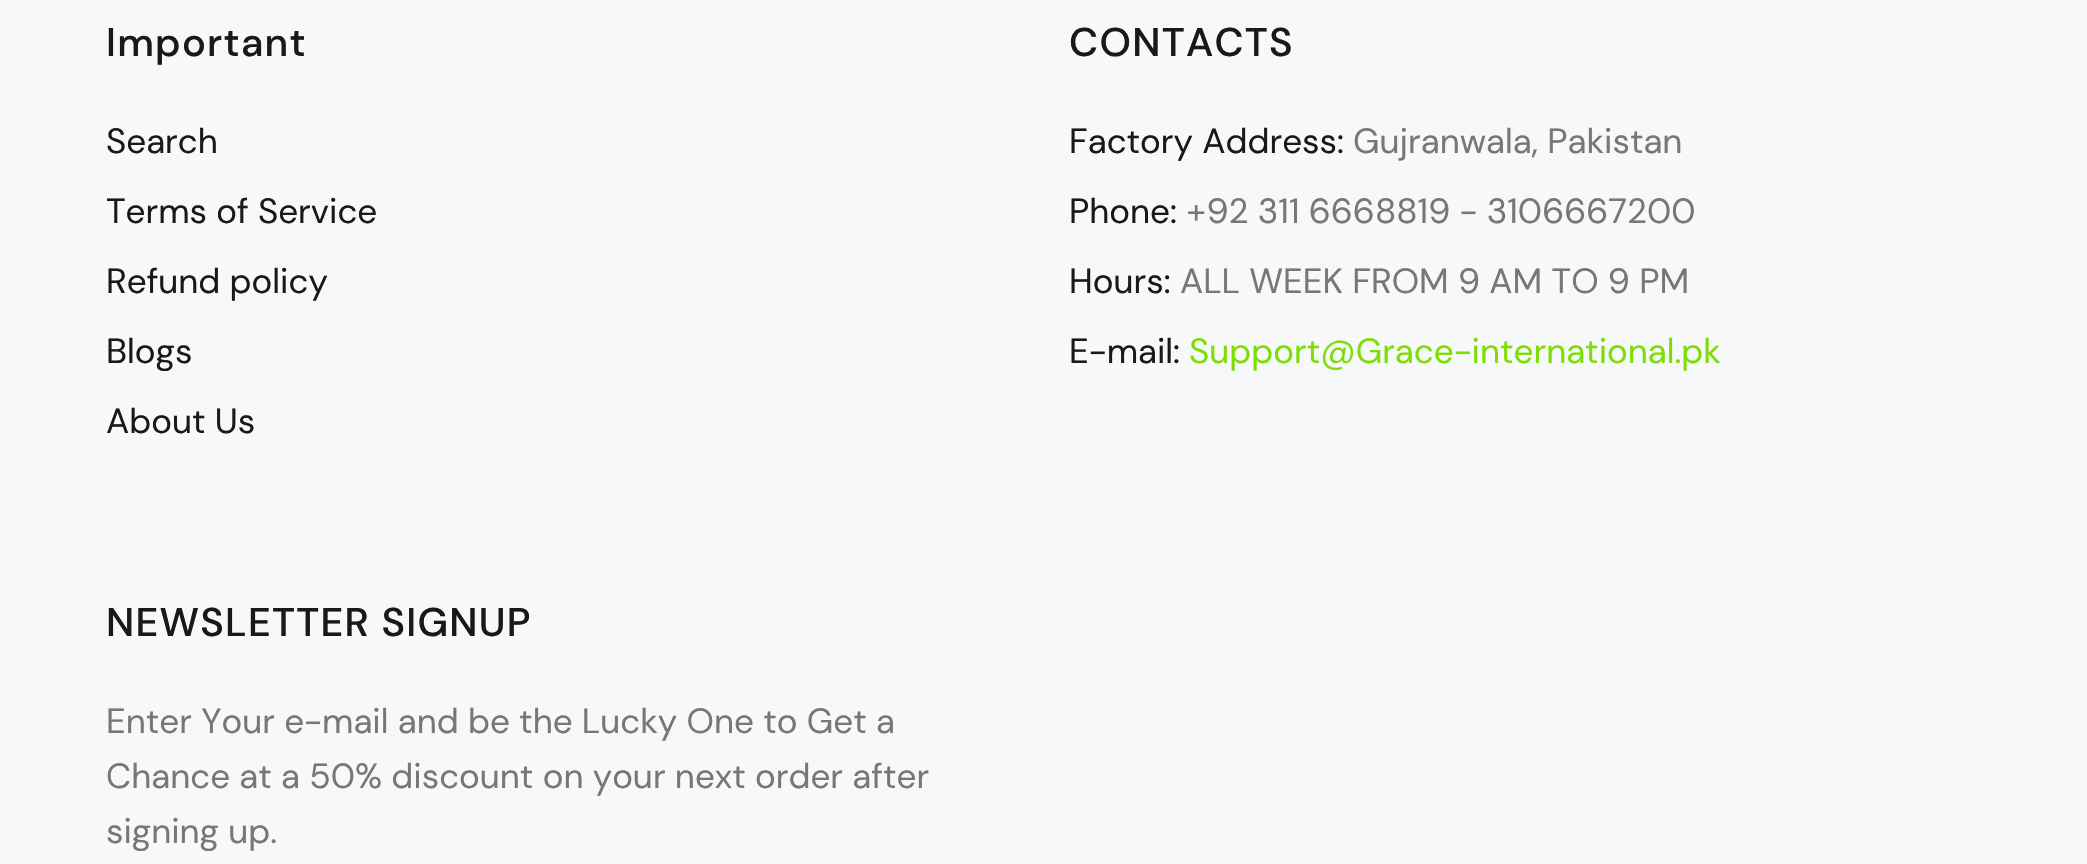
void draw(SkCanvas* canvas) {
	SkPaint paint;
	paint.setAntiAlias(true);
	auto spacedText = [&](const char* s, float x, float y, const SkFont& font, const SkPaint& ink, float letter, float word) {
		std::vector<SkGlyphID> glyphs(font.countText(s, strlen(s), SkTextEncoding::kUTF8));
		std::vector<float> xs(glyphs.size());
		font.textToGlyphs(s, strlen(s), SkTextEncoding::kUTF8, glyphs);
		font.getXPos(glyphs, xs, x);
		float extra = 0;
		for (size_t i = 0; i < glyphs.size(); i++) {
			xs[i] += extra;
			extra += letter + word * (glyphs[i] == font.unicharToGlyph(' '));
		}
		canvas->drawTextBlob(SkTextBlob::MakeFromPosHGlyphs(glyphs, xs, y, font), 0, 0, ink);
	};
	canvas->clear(0xfff7f8fa);
	SkFont f1(fontMgr->matchFamilyStyle("DM Sans", SkFontStyle(500, SkFontStyle::kNormal_Width, SkFontStyle::kUpright_Slant)), 40);
	f1.setSubpixel(true);
	paint.setColor(0xff191919);
	spacedText("Important", 106, 56, f1, paint, 1.25, 0);
	SkFont f2(fontMgr->matchFamilyStyle("DM Sans", SkFontStyle::Normal()), 35);
	f2.setSubpixel(true);
	canvas->drawString("Search", 106, 153, f2, paint);
	canvas->drawString("Terms of Service", 106, 223, f2, paint);
	canvas->drawString("Refund policy", 106, 293, f2, paint);
	canvas->drawString("Blogs", 106, 363, f2, paint);
	canvas->drawString("About Us", 106, 433, f2, paint);
	spacedText("CONTACTS", 1069, 56, f1, paint, 1.25, 0);
	canvas->drawString("Factory Address:", 1069, 153, f2, paint);
	paint.setColor(0xff777777);
	canvas->drawString("Gujranwala, Pakistan", 1353, 153, f2, paint);
	paint.setColor(0xff191919);
	canvas->drawString("Phone:", 1069, 223, f2, paint);
	paint.setColor(0xff777777);
	canvas->drawString("+92 311 6668819 - 3106667200", 1186, 223, f2, paint);
	paint.setColor(0xff191919);
	canvas->drawString("Hours:", 1069, 293, f2, paint);
	paint.setColor(0xff777777);
	canvas->drawString("ALL WEEK FROM 9 AM TO 9 PM", 1180, 293, f2, paint);
	paint.setColor(0xff191919);
	canvas->drawString("E-mail:", 1069, 363, f2, paint);
	paint.setColor(0xff7dde03);
	canvas->drawString("Support@Grace-international.pk", 1189, 363, f2, paint);
	paint.setColor(0xff191919);
	spacedText("NEWSLETTER SIGNUP", 106, 636, f1, paint, 1.25, 0);
	paint.setColor(0xff777777);
	canvas->drawString("Enter Your e-mail and be the Lucky One to Get a", 106, 733, f2, paint);
	canvas->drawString("Chance at a 50% discount on your next order after", 106, 788, f2, paint);
	canvas->drawString("signing up.", 106, 843, f2, paint);
}
